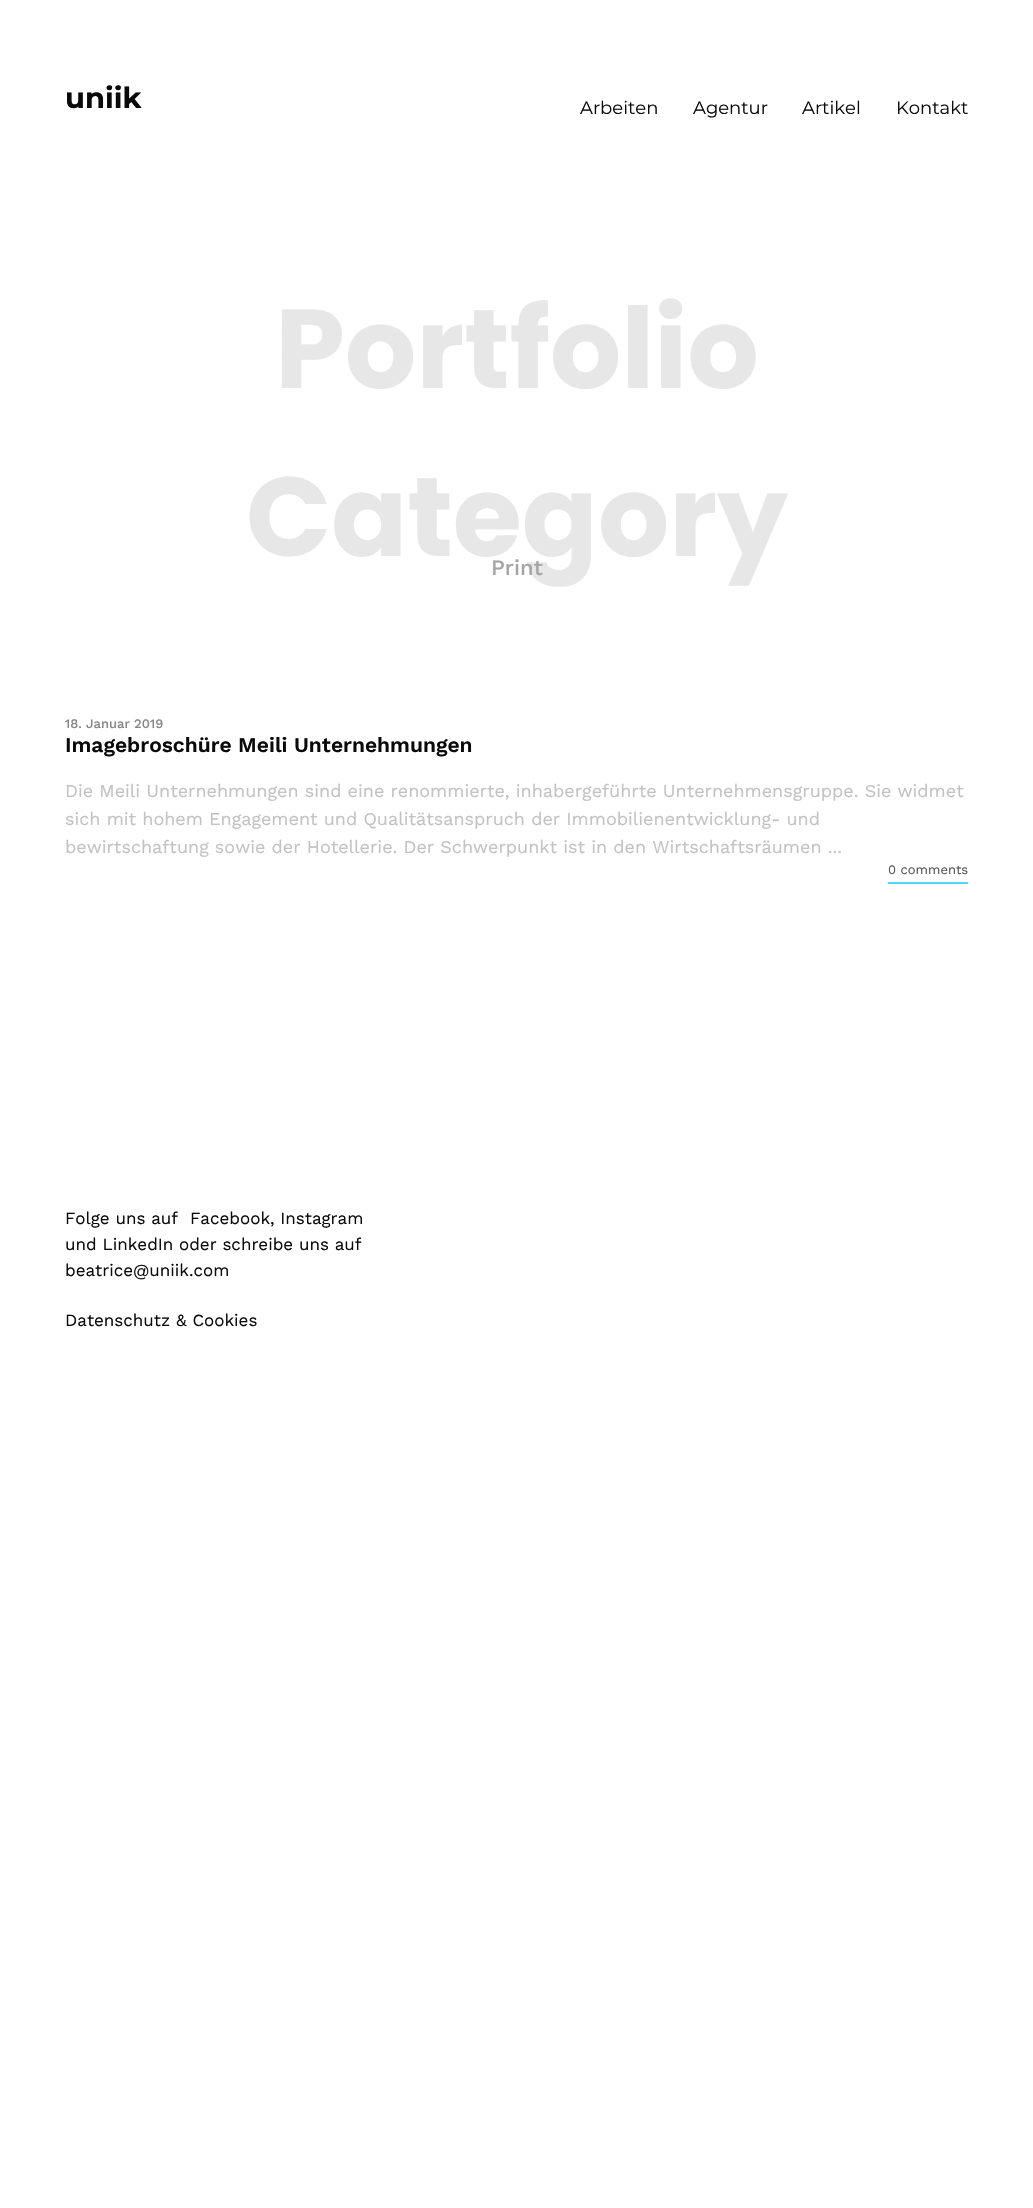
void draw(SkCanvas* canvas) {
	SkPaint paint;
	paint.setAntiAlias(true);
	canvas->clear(0xffffffff);
	SkFont f1(fontMgr->matchFamilyStyle("Montserrat", SkFontStyle::Bold()), 29);
	f1.setSubpixel(true);
	paint.setColor(0xff0a0a0a);
	canvas->drawString("uniik", 65, 108, f1, paint);
	SkFont f2(fontMgr->matchFamilyStyle("Montserrat", SkFontStyle::Normal()), 18);
	f2.setSubpixel(true);
	canvas->drawString("Arbeiten", 580, 114, f2, paint);
	canvas->drawString("Agentur", 693, 114, f2, paint);
	canvas->drawString("Artikel", 802, 114, f2, paint);
	canvas->drawString("Kontakt", 896, 114, f2, paint);
	SkFont f3(fontMgr->matchFamilyStyle("Poppins", SkFontStyle::Bold()), 112);
	f3.setSubpixel(true);
	paint.setColor(0xffe7e7e7);
	canvas->drawString("Portfolio", 275, 388, f3, paint);
	canvas->drawString("Category", 246, 556, f3, paint);
	SkFont f4(fontMgr->matchFamilyStyle("Work Sans", SkFontStyle(500, SkFontStyle::kNormal_Width, SkFontStyle::kUpright_Slant)), 22);
	f4.setSubpixel(true);
	paint.setColor(0xffa5a5a5);
	canvas->drawString("Print", 491, 575, f4, paint);
	SkFont f5(fontMgr->matchFamilyStyle("Work Sans", SkFontStyle(500, SkFontStyle::kNormal_Width, SkFontStyle::kUpright_Slant)), 13);
	f5.setSubpixel(true);
	paint.setColor(0xff858585);
	canvas->drawString("18. Januar 2019", 65, 728, f5, paint);
	SkFont f6(fontMgr->matchFamilyStyle("Work Sans", SkFontStyle(600, SkFontStyle::kNormal_Width, SkFontStyle::kUpright_Slant)), 21);
	f6.setSubpixel(true);
	paint.setColor(0xff0a0a0a);
	canvas->drawString("Imagebroschüre Meili Unternehmungen", 65, 752, f6, paint);
	SkFont f7(fontMgr->matchFamilyStyle("Work Sans", SkFontStyle::Normal()), 18);
	f7.setSubpixel(true);
	paint.setColor(0xffc2c2c2);
	canvas->drawString("Die Meili Unternehmungen sind eine renommierte, inhabergeführte Unternehmensgruppe. Sie widmet", 65, 797, f7, paint);
	canvas->drawString("sich mit hohem Engagement und Qualitätsanspruch der Immobilienentwicklung- und", 65, 825, f7, paint);
	canvas->drawString("bewirtschaftung sowie der Hotellerie. Der Schwerpunkt ist in den Wirtschaftsräumen ...", 65, 853, f7, paint);
	SkFont f8(fontMgr->matchFamilyStyle("Work Sans", SkFontStyle::Normal()), 13);
	f8.setSubpixel(true);
	paint.setColor(0xff545454);
	canvas->drawString("0 comments", 888, 874, f8, paint);
	paint.setColor(0xff4dd8ff);
	canvas->drawRect(SkRect::MakeXYWH(888, 882, 80, 2), paint);
	SkFont f9(fontMgr->matchFamilyStyle("Work Sans", SkFontStyle::Normal()), 17);
	f9.setSubpixel(true);
	paint.setColor(0xff0a0a0a);
	canvas->drawString("Folge uns auf", 65, 1224, f9, paint);
	canvas->drawString("Facebook", 190, 1224, f9, paint);
	canvas->drawString(", Instagram", 270, 1224, f9, paint);
	canvas->drawString("und LinkedIn", 65, 1250, f9, paint);
	canvas->drawString("oder schreibe uns auf", 179, 1250, f9, paint);
	canvas->drawString("beatrice@uniik.com", 65, 1276, f9, paint);
	canvas->drawString("Datenschutz", 65, 1326, f9, paint);
	canvas->drawString("& Cookies", 176, 1326, f9, paint);
}
